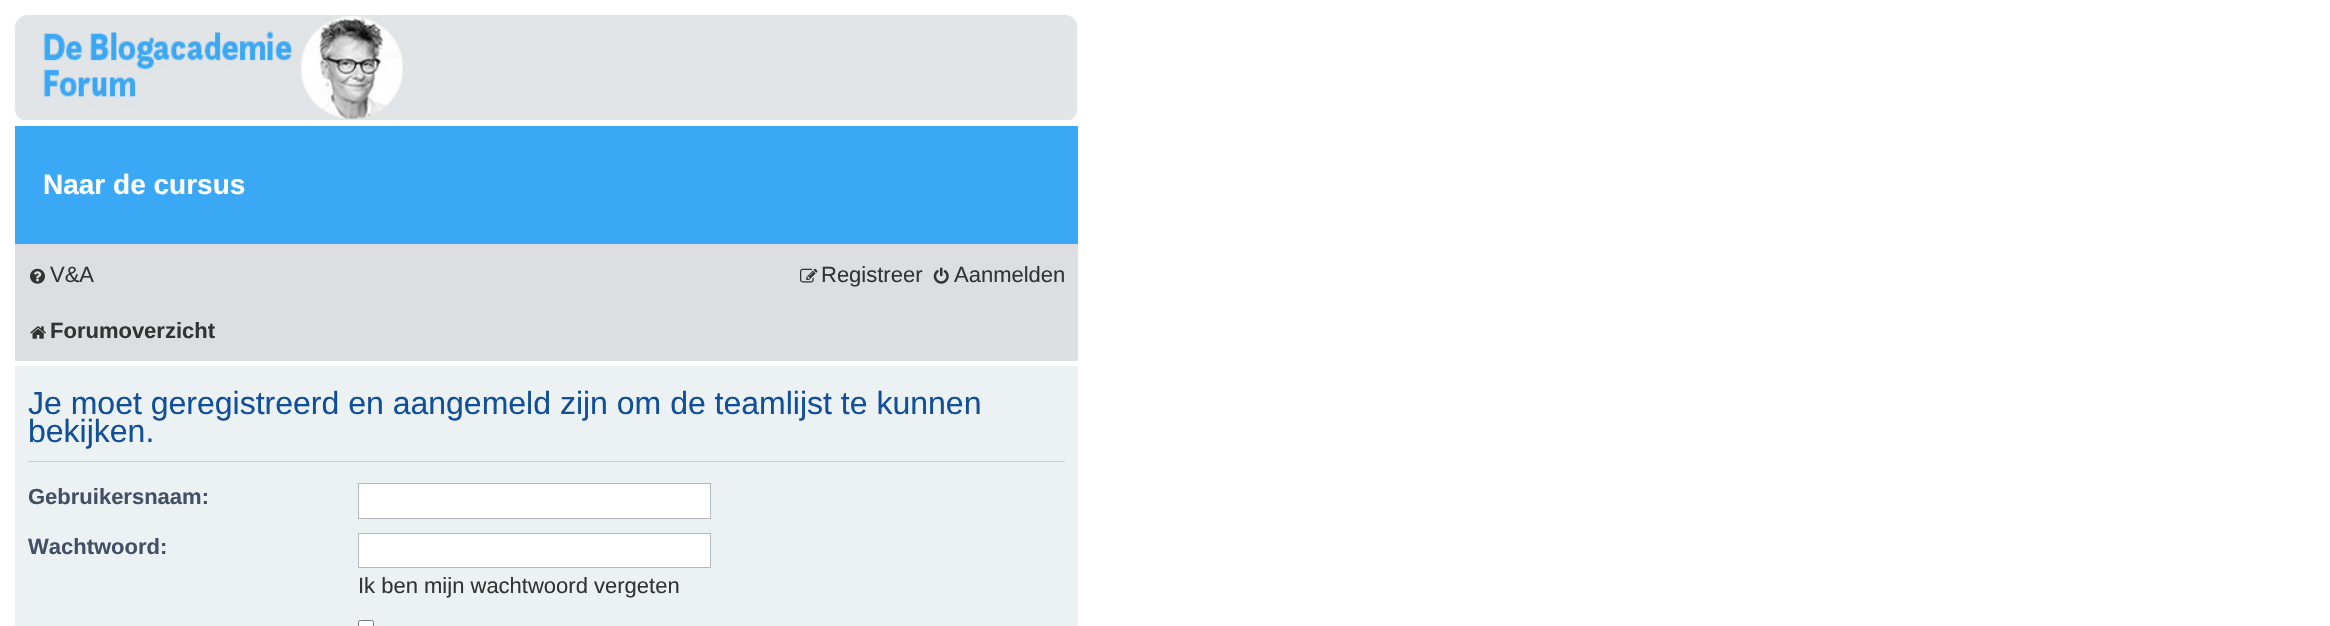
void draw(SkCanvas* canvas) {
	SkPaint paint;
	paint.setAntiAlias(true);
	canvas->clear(0xffffffff);
	canvas->drawImageRect(SkImages::DeferredFromEncodedData(SkData::MakeFromFileName("img1.png")), SkRect::MakeXYWH(15, 15, 1063, 105), SkSamplingOptions());
	paint.setColor(0xff3aa8f4);
	canvas->drawRect(SkRect::MakeXYWH(15, 126, 1063, 118), paint);
	SkFont f1(fontMgr->matchFamilyStyle("Liberation Sans", SkFontStyle::Bold()), 28);
	f1.setSubpixel(true);
	paint.setColor(0xffffffff);
	canvas->drawString("Naar de cursus", 43, 194, f1, paint);
	paint.setColor(0xffdcdee2);
	canvas->drawRect(SkRect::MakeXYWH(15, 244, 1063, 117), paint);
	canvas->drawImageRect(SkImages::DeferredFromEncodedData(SkData::MakeFromFileName("img2.png")), SkRect::MakeXYWH(30, 268, 15, 16), SkSamplingOptions());
	SkFont f2(fontMgr->matchFamilyStyle("Liberation Sans", SkFontStyle::Normal()), 22);
	f2.setSubpixel(true);
	paint.setColor(0xff333333);
	canvas->drawString("V&A", 50, 282, f2, paint);
	canvas->drawImageRect(SkImages::DeferredFromEncodedData(SkData::MakeFromFileName("img3.png")), SkRect::MakeXYWH(800, 268, 18, 15), SkSamplingOptions());
	canvas->drawString("Registreer", 821, 282, f2, paint);
	canvas->drawImageRect(SkImages::DeferredFromEncodedData(SkData::MakeFromFileName("img4.png")), SkRect::MakeXYWH(933, 267, 16, 17), SkSamplingOptions());
	canvas->drawString("Aanmelden", 954, 282, f2, paint);
	canvas->drawImageRect(SkImages::DeferredFromEncodedData(SkData::MakeFromFileName("img5.png")), SkRect::MakeXYWH(30, 326, 16, 13), SkSamplingOptions());
	SkFont f3(fontMgr->matchFamilyStyle("Liberation Sans", SkFontStyle::Bold()), 22);
	f3.setSubpixel(true);
	canvas->drawString("Forumoverzicht", 50, 338, f3, paint);
	paint.setColor(0xffecf1f3);
	canvas->drawRect(SkRect::MakeXYWH(15, 366, 1063, 260), paint);
	paint.setColor(0xffcccccc);
	canvas->drawRect(SkRect::MakeXYWH(28, 461, 1037, 1), paint);
	SkFont f4(fontMgr->matchFamilyStyle("Liberation Sans", SkFontStyle::Normal()), 32);
	f4.setSubpixel(true);
	paint.setColor(0xff115098);
	canvas->drawString("Je moet geregistreerd en aangemeld zijn om de teamlijst te kunnen", 28, 414, f4, paint);
	canvas->drawString("bekijken.", 28, 442, f4, paint);
	paint.setColor(0xff425067);
	canvas->drawString("Gebruikersnaam:", 28, 504, f3, paint);
	paint.setColor(0xffffffff);
	canvas->drawRect(SkRect::MakeXYWH(358.5, 483.5, 352, 35), paint);
	paint.setStroke(true);
	paint.setStrokeWidth(1);
	paint.setColor(0xffb4bac0);
	canvas->drawRect(SkRect::MakeXYWH(358.5, 483.5, 352, 35), paint);
	canvas->save();
	canvas->clipRect(SkRect::MakeXYWH(28, 528, 1037, 81));
	paint.setStroke(false);
	paint.setColor(0xff425067);
	canvas->drawString("Wachtwoord:", 28, 554, f3, paint);
	canvas->restore();
	paint.setColor(0xffffffff);
	canvas->drawRect(SkRect::MakeXYWH(358.5, 533.5, 352, 34), paint);
	paint.setStroke(true);
	paint.setColor(0xffb4bac0);
	canvas->drawRect(SkRect::MakeXYWH(358.5, 533.5, 352, 34), paint);
	paint.setStroke(false);
	paint.setColor(0xff333333);
	canvas->drawString("Ik ben mijn wachtwoord vergeten", 358, 593, f2, paint);
	paint.setColor(0xffffffff);
	canvas->drawRoundRect(SkRect::MakeXYWH(358.5, 620.5, 15, 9), 2, 2, paint);
	paint.setStroke(true);
	paint.setColor(0xff767676);
	canvas->drawRoundRect(SkRect::MakeXYWH(358.5, 620.5, 15, 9), 2, 2, paint);
}
